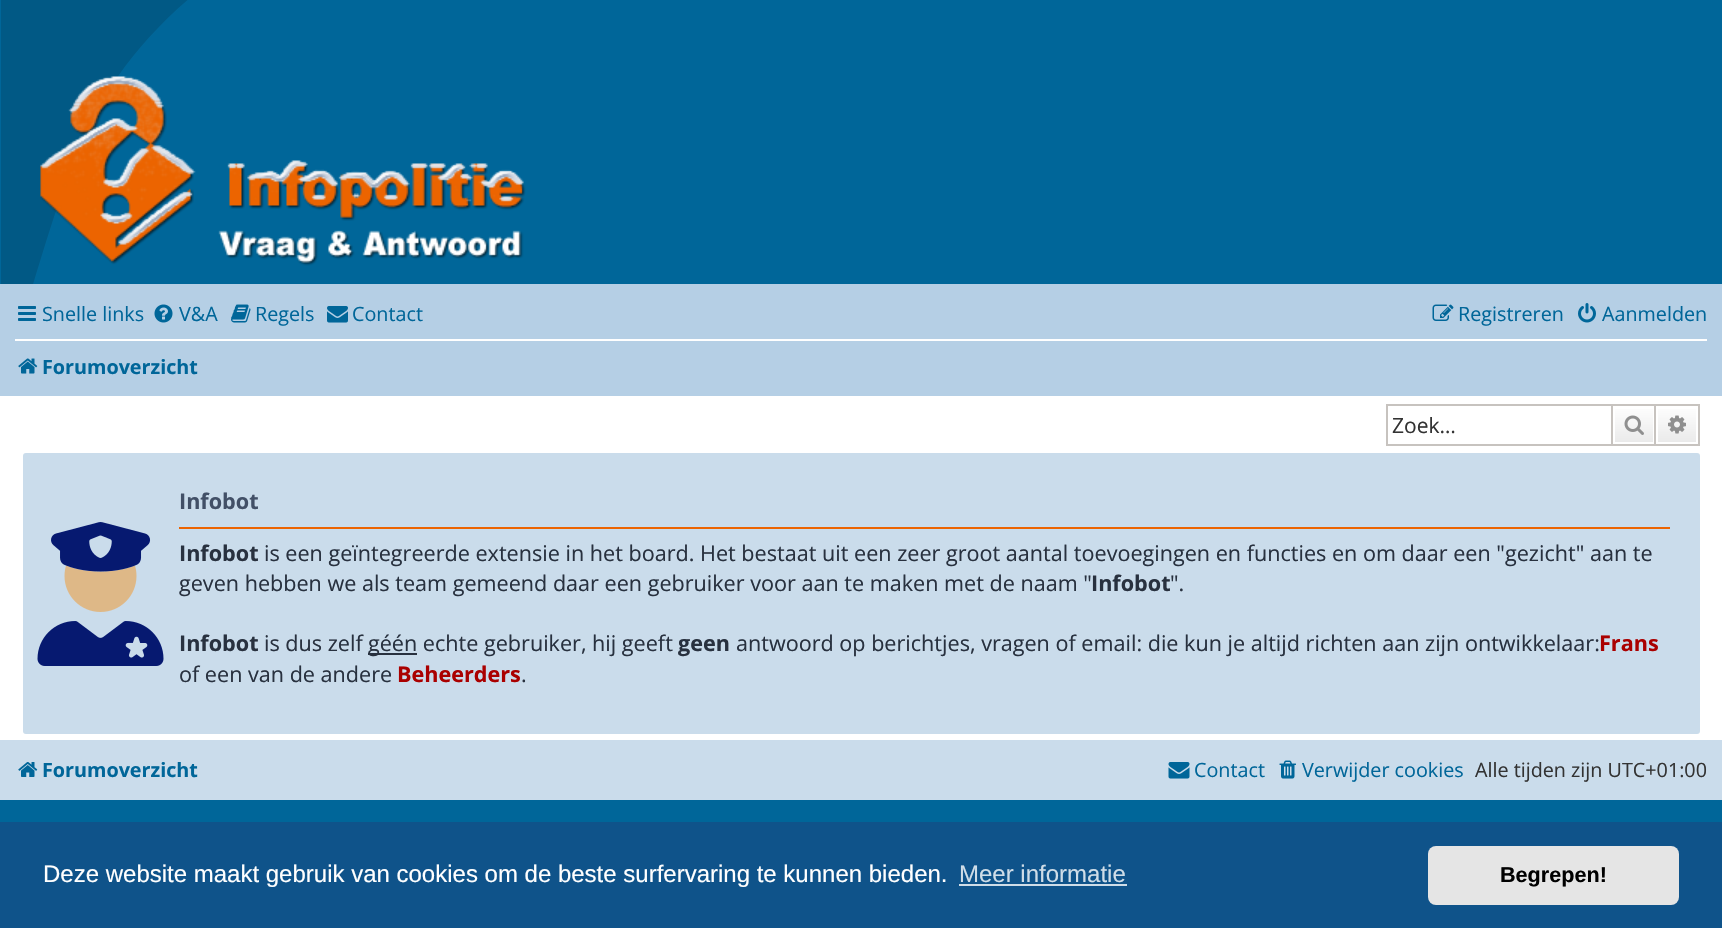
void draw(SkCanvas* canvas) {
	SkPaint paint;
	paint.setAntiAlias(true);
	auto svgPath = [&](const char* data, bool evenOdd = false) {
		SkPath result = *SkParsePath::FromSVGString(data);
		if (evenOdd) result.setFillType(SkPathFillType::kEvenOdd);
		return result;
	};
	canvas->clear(0xffffffff);
	paint.setColor(0xff006699);
	canvas->drawRect(SkRect::MakeXYWH(0, 0, 1722, 284), paint);
	paint.setColor(0xff015985);
	canvas->drawPath(svgPath("M1-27H222C145 28 101 92 77 152C47 227 1 396 1 396Z"), paint);
	canvas->drawImageRect(SkImages::DeferredFromEncodedData(SkData::MakeFromFileName("img1.png")), SkRect::MakeXYWH(40, 76, 486, 190), SkSamplingOptions());
	paint.setColor(0xffb5cfe5);
	canvas->drawRect(SkRect::MakeXYWH(0, 284, 1722, 112), paint);
	canvas->drawImageRect(SkImages::DeferredFromEncodedData(SkData::MakeFromFileName("img2.png")), SkRect::MakeXYWH(18, 306, 18, 15), SkSamplingOptions());
	SkFont f1(fontMgr->matchFamilyStyle("Open Sans", SkFontStyle::Normal()), 19.75);
	f1.setSubpixel(true);
	paint.setColor(0xff006699);
	canvas->drawString("Snelle links", 42, 321, f1, paint);
	canvas->drawImageRect(SkImages::DeferredFromEncodedData(SkData::MakeFromFileName("img3.png")), SkRect::MakeXYWH(154, 304, 19, 19), SkSamplingOptions());
	canvas->drawString("V&A", 179, 321, f1, paint);
	canvas->drawImageRect(SkImages::DeferredFromEncodedData(SkData::MakeFromFileName("img4.png")), SkRect::MakeXYWH(231, 304, 20, 19), SkSamplingOptions());
	canvas->drawString("Regels", 255, 321, f1, paint);
	canvas->drawImageRect(SkImages::DeferredFromEncodedData(SkData::MakeFromFileName("img5.png")), SkRect::MakeXYWH(327, 306, 21, 17), SkSamplingOptions());
	canvas->drawString("Contact", 352, 321, f1, paint);
	canvas->drawImageRect(SkImages::DeferredFromEncodedData(SkData::MakeFromFileName("img6.png")), SkRect::MakeXYWH(1432, 304, 22, 17), SkSamplingOptions());
	canvas->drawString("Registreren", 1458, 321, f1, paint);
	canvas->drawImageRect(SkImages::DeferredFromEncodedData(SkData::MakeFromFileName("img7.png")), SkRect::MakeXYWH(1578, 303, 18, 20), SkSamplingOptions());
	canvas->drawString("Aanmelden", 1602, 321, f1, paint);
	paint.setColor(0xffffffff);
	canvas->drawRect(SkRect::MakeXYWH(15, 339, 1692, 2), paint);
	canvas->drawImageRect(SkImages::DeferredFromEncodedData(SkData::MakeFromFileName("img8.png")), SkRect::MakeXYWH(18, 358, 20, 16), SkSamplingOptions());
	SkFont f2(fontMgr->matchFamilyStyle("Open Sans", SkFontStyle::Bold()), 19.75);
	f2.setSubpixel(true);
	paint.setColor(0xff006699);
	canvas->drawString("Forumoverzicht", 42, 374, f2, paint);
	paint.setColor(0xffc7c3bf);
	canvas->drawRect(SkRect::MakeXYWH(1386, 404, 225, 2), paint);
	canvas->drawRect(SkRect::MakeXYWH(1386, 444, 225, 2), paint);
	canvas->drawRect(SkRect::MakeXYWH(1386, 404, 2, 42), paint);
	SkFont f3(fontMgr->matchFamilyStyle("Open Sans", SkFontStyle::Normal()), 21);
	f3.setSubpixel(true);
	paint.setColor(0xff333333);
	canvas->drawString("Zoek…", 1392, 433, f3, paint);
	{
		const SkColor colors[] = {0xffffffff, 0xffe9e9e9};
		const float stops[] = {0, 1};
		const SkPoint ends[] = {{1634, 405}, {1634, 444}};
		paint.setShader(SkGradientShader::MakeLinear(ends, colors, stops, 2, SkTileMode::kClamp));
		paint.setAlpha(255);
	}
	canvas->drawRect(SkRect::MakeXYWH(1615, 409, 38, 33), paint);
	paint.setStroke(true);
	paint.setStrokeWidth(2);
	paint.setShader(nullptr);
	paint.setColor(0xffc7c3bf);
	canvas->drawRect(SkRect::MakeXYWH(1612, 405, 43, 40), paint);
	canvas->drawImageRect(SkImages::DeferredFromEncodedData(SkData::MakeFromFileName("img9.png")), SkRect::MakeXYWH(1624, 415, 20, 20), SkSamplingOptions());
	paint.setStroke(false);
	{
		const SkColor colors[] = {0xffffffff, 0xffe9e9e9};
		const float stops[] = {0, 1};
		const SkPoint ends[] = {{1677, 405}, {1677, 444}};
		paint.setShader(SkGradientShader::MakeLinear(ends, colors, stops, 2, SkTileMode::kClamp));
		paint.setAlpha(255);
	}
	canvas->drawRect(SkRect::MakeXYWH(1658, 409, 38, 33), paint);
	paint.setShader(nullptr);
	paint.setColor(0xffc7c3bf);
	canvas->drawRect(SkRect::MakeXYWH(1656, 404, 44, 2), paint);
	canvas->drawRect(SkRect::MakeXYWH(1698, 404, 2, 42), paint);
	canvas->drawRect(SkRect::MakeXYWH(1656, 444, 44, 2), paint);
	canvas->drawImageRect(SkImages::DeferredFromEncodedData(SkData::MakeFromFileName("img10.png")), SkRect::MakeXYWH(1668, 415, 18, 19), SkSamplingOptions());
	paint.setColor(0xffcadceb);
	canvas->drawRoundRect(SkRect::MakeXYWH(23, 453, 1677, 281), 3, 3, paint);
	canvas->drawImageRect(SkImages::DeferredFromEncodedData(SkData::MakeFromFileName("img11.png")), SkRect::MakeXYWH(37, 522, 127, 144), SkSamplingOptions());
	paint.setColor(0xffec6400);
	canvas->drawRect(SkRect::MakeXYWH(179, 527, 1491, 2), paint);
	SkFont f4(fontMgr->matchFamilyStyle("Open Sans", SkFontStyle::Bold()), 21.6);
	f4.setSubpixel(true);
	paint.setColor(0xff425067);
	canvas->drawString("Infobot", 179, 509, f4, paint);
	paint.setColor(0xff28313f);
	canvas->drawString("Infobot", 179, 561, f4, paint);
	SkFont f5(fontMgr->matchFamilyStyle("Open Sans", SkFontStyle::Normal()), 21.6);
	f5.setSubpixel(true);
	canvas->drawString("is een geïntegreerde extensie in het board. Het bestaat uit een zeer groot aantal toevoegingen en functies en om daar een \"gezicht\" aan te", 264, 561, f5, paint);
	canvas->drawString("geven hebben we als team gemeend daar een gebruiker voor aan te maken met de naam \"", 179, 591, f5, paint);
	canvas->drawString("Infobot", 1091, 591, f4, paint);
	canvas->drawString("\".", 1170, 591, f5, paint);
	canvas->drawString("Infobot", 179, 651, f4, paint);
	canvas->drawString("is dus zelf", 264, 651, f5, paint);
	canvas->drawRect(SkRect::MakeXYWH(368, 653, 49, 2), paint);
	canvas->drawString("géén echte gebruiker, hij geeft", 368, 651, f5, paint);
	canvas->drawString("geen", 678, 651, f4, paint);
	canvas->drawString("antwoord op berichtjes, vragen of email: die kun je altijd richten aan zijn ontwikkelaar:", 736, 651, f5, paint);
	paint.setColor(0xffaa0000);
	canvas->drawString("Frans", 1599, 651, f4, paint);
	paint.setColor(0xff28313f);
	canvas->drawString("of een van de andere", 179, 682, f5, paint);
	paint.setColor(0xffaa0000);
	canvas->drawString("Beheerders", 397, 682, f4, paint);
	paint.setColor(0xff28313f);
	canvas->drawString(".", 521, 682, f5, paint);
	paint.setColor(0xff006699);
	canvas->drawRect(SkRect::MakeXYWH(0, 800, 1722, 22), paint);
	paint.setColor(0xffcadceb);
	canvas->drawRect(SkRect::MakeXYWH(0, 740, 1722, 60), paint);
	canvas->drawImageRect(SkImages::DeferredFromEncodedData(SkData::MakeFromFileName("img12.png")), SkRect::MakeXYWH(18, 762, 20, 15), SkSamplingOptions());
	paint.setColor(0xff006699);
	canvas->drawString("Forumoverzicht", 42, 777, f2, paint);
	canvas->drawImageRect(SkImages::DeferredFromEncodedData(SkData::MakeFromFileName("img13.png")), SkRect::MakeXYWH(1168, 762, 22, 17), SkSamplingOptions());
	canvas->drawString("Contact", 1194, 777, f1, paint);
	canvas->drawImageRect(SkImages::DeferredFromEncodedData(SkData::MakeFromFileName("img14.png")), SkRect::MakeXYWH(1279, 760, 17, 19), SkSamplingOptions());
	canvas->drawString("Verwijder cookies", 1302, 777, f1, paint);
	paint.setColor(0xff333333);
	canvas->drawString("Alle tijden zijn UTC+01:00", 1475, 777, f1, paint);
	paint.setColor(0xff0f538a);
	canvas->drawRect(SkRect::MakeXYWH(0, 822, 1722, 106), paint);
	SkFont f6(fontMgr->matchFamilyStyle("Liberation Sans", SkFontStyle::Normal()), 24);
	f6.setSubpixel(true);
	paint.setColor(0xffffffff);
	canvas->drawString("Deze website maakt gebruik van cookies om de beste surfervaring te kunnen bieden.", 43, 882, f6, paint);
	paint.setColor(0xffcfdde8);
	canvas->drawString("Meer informatie", 959, 882, f6, paint);
	canvas->drawRect(SkRect::MakeXYWH(959, 884, 168, 2), paint);
	paint.setColor(0xffe5e5e5);
	canvas->drawRoundRect(SkRect::MakeXYWH(1428, 846, 251, 59), 8, 8, paint);
	SkFont f7(fontMgr->matchFamilyStyle("Liberation Sans", SkFontStyle::Bold()), 21.6);
	f7.setSubpixel(true);
	paint.setColor(0xff000000);
	canvas->drawString("Begrepen!", 1500, 882, f7, paint);
}
